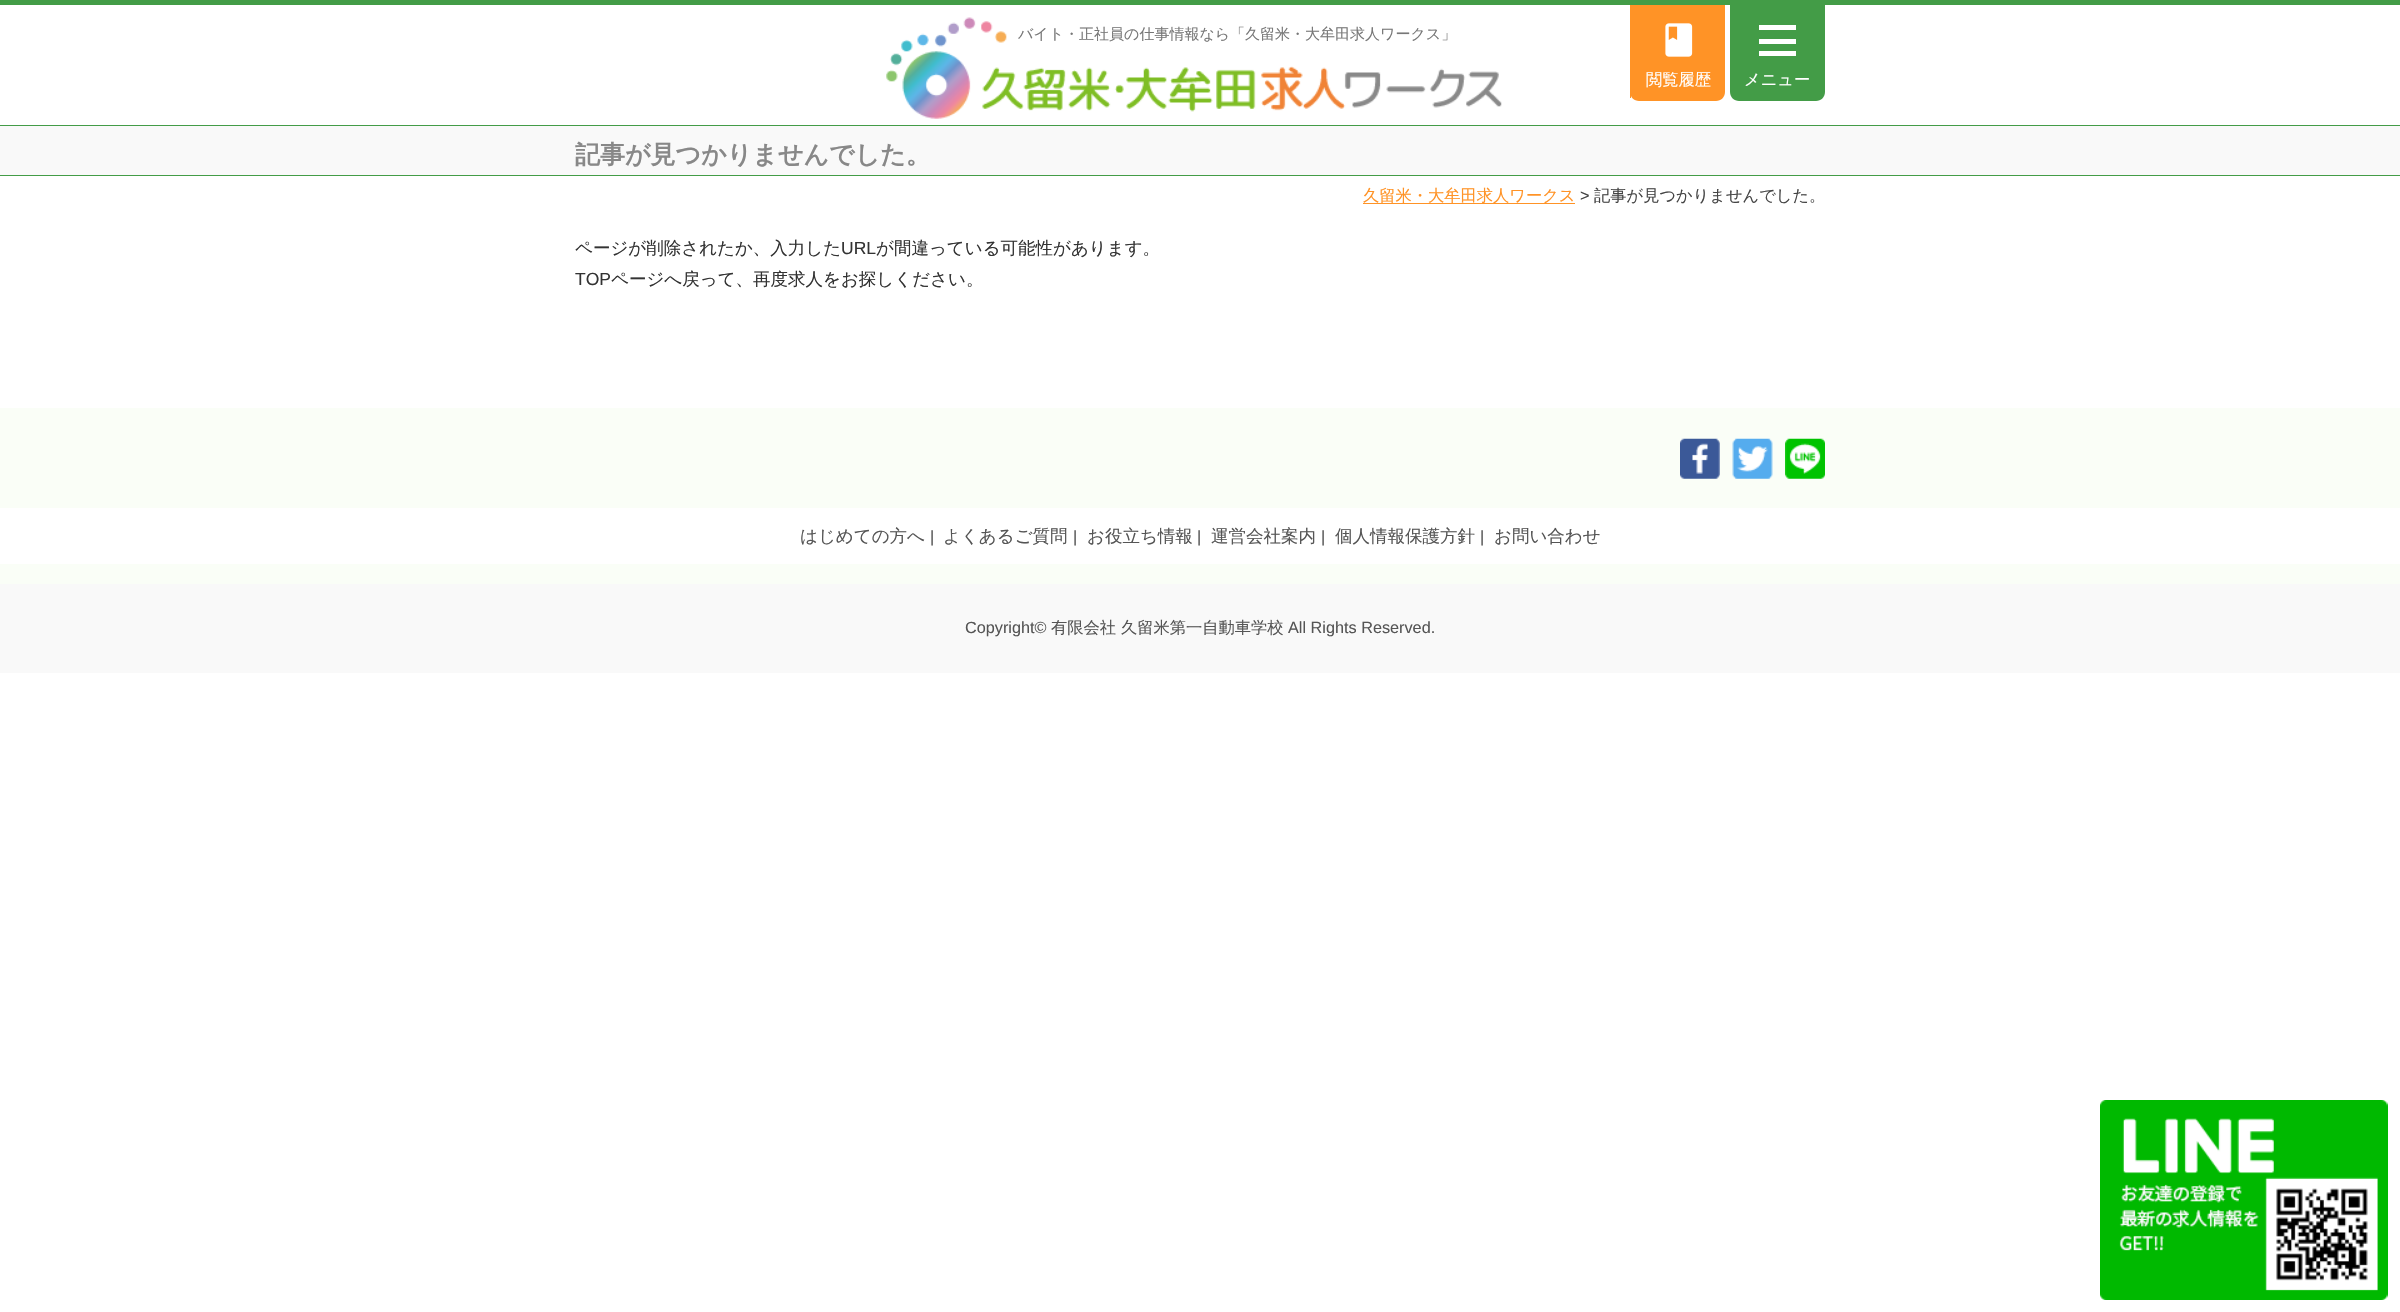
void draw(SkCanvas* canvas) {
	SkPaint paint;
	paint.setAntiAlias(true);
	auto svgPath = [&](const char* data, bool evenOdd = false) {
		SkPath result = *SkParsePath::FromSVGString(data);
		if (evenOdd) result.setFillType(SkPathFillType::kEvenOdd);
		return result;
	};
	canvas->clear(0xffffffff);
	paint.setColor(0xff439c47);
	canvas->drawRect(SkRect::MakeXYWH(0, 125, 2400, 1), paint);
	canvas->drawRect(SkRect::MakeXYWH(0, 0, 2400, 5), paint);
	canvas->drawImageRect(SkImages::DeferredFromEncodedData(SkData::MakeFromFileName("img1.png")), SkRect::MakeXYWH(886, 17, 616, 102), SkSamplingOptions());
	SkFont f1(fontMgr->matchFamilyStyle("WenQuanYi Zen Hei", SkFontStyle(500, SkFontStyle::kNormal_Width, SkFontStyle::kUpright_Slant)), 15);
	f1.setSubpixel(true);
	paint.setColor(0xff777777);
	canvas->drawString("バイト・正社員の仕事情報なら「久留米・大牟田求人ワークス」", 1018, 39, f1, paint);
	paint.setColor(0xffff9326);
	canvas->drawPath(svgPath("M1630 5H1725V92C1725 97 1721 101 1716 101H1639C1634 101 1630 97 1630 92Z"), paint);
	canvas->drawRect(SkRect::MakeXYWH(1630, 92, 1, 6), paint);
	canvas->drawImageRect(SkImages::DeferredFromEncodedData(SkData::MakeFromFileName("img2.png")), SkRect::MakeXYWH(1665, 23, 28, 34), SkSamplingOptions());
	SkFont f2(fontMgr->matchFamilyStyle("WenQuanYi Zen Hei", SkFontStyle(500, SkFontStyle::kNormal_Width, SkFontStyle::kUpright_Slant)), 16.25);
	f2.setSubpixel(true);
	paint.setColor(0xffffffff);
	canvas->drawString("閲覧履歴", 1646, 85, f2, paint);
	paint.setColor(0xff439c47);
	canvas->drawPath(svgPath("M1730 5H1825V92C1825 97 1821 101 1816 101H1739C1734 101 1730 97 1730 92Z"), paint);
	paint.setColor(0xffffffff);
	canvas->drawRect(SkRect::MakeXYWH(1759, 25, 37, 5), paint);
	canvas->drawRect(SkRect::MakeXYWH(1759, 39, 37, 5), paint);
	canvas->drawRect(SkRect::MakeXYWH(1759, 51, 37, 5), paint);
	canvas->drawString("メニュー", 1744, 85, f2, paint);
	paint.setColor(0xfff9f9f9);
	canvas->drawRect(SkRect::MakeXYWH(0, 126, 2400, 49), paint);
	paint.setColor(0xff439c47);
	canvas->drawRect(SkRect::MakeXYWH(0, 175, 2400, 1), paint);
	SkFont f3(fontMgr->matchFamilyStyle("WenQuanYi Zen Hei", SkFontStyle::Bold()), 25);
	f3.setSubpixel(true);
	paint.setColor(0xff888888);
	canvas->drawString("記事が見つかりませんでした。", 575, 163, f3, paint);
	paint.setColor(0xffff9326);
	canvas->drawRect(SkRect::MakeXYWH(1363, 203, 212, 1), paint);
	canvas->drawString("久留米・大牟田求人ワークス", 1363, 201, f2, paint);
	SkFont f4(fontMgr->matchFamilyStyle("Liberation Sans", SkFontStyle::Normal()), 16.25);
	f4.setSubpixel(true);
	paint.setColor(0xff444444);
	canvas->drawString(">", 1580, 201, f4, paint);
	canvas->drawString("記事が見つかりませんでした。", 1594, 201, f2, paint);
	SkFont f5(fontMgr->matchFamilyStyle("WenQuanYi Zen Hei", SkFontStyle(500, SkFontStyle::kNormal_Width, SkFontStyle::kUpright_Slant)), 17.5);
	f5.setSubpixel(true);
	paint.setColor(0xff333333);
	canvas->drawString("ページが削除されたか、入力した", 575, 254, f5, paint);
	SkFont f6(fontMgr->matchFamilyStyle("Liberation Sans", SkFontStyle::Normal()), 17.5);
	f6.setSubpixel(true);
	canvas->drawString("URL", 841, 254, f6, paint);
	canvas->drawString("が間違っている可能性があります。", 876, 254, f5, paint);
	canvas->drawString("TOP", 575, 285, f6, paint);
	canvas->drawString("ページへ戻って、再度求人をお探しください。", 611, 285, f5, paint);
	paint.setColor(0xfffafef7);
	canvas->drawRect(SkRect::MakeXYWH(0, 408, 2400, 176), paint);
	canvas->drawImageRect(SkImages::DeferredFromEncodedData(SkData::MakeFromFileName("img3.png")), SkRect::MakeXYWH(1680, 438, 40, 41), SkSamplingOptions());
	canvas->drawImageRect(SkImages::DeferredFromEncodedData(SkData::MakeFromFileName("img4.png")), SkRect::MakeXYWH(1732, 438, 41, 41), SkSamplingOptions());
	canvas->drawImageRect(SkImages::DeferredFromEncodedData(SkData::MakeFromFileName("img5.png")), SkRect::MakeXYWH(1785, 438, 40, 41), SkSamplingOptions());
	paint.setColor(0xffffffff);
	canvas->drawRect(SkRect::MakeXYWH(0, 508, 2400, 56), paint);
	paint.setColor(0xff555555);
	canvas->drawString("はじめての方へ", 800, 542, f5, paint);
	canvas->drawString("|", 930, 542, f4, paint);
	canvas->drawString("よくあるご質問", 943, 542, f5, paint);
	canvas->drawString("|", 1073, 542, f4, paint);
	canvas->drawString("お役立ち情報", 1087, 542, f5, paint);
	canvas->drawString("|", 1197, 542, f4, paint);
	canvas->drawString("運営会社案内", 1211, 542, f5, paint);
	canvas->drawString("|", 1321, 542, f4, paint);
	canvas->drawString("個人情報保護方針", 1335, 542, f5, paint);
	canvas->drawString("|", 1480, 542, f4, paint);
	canvas->drawString("お問い合わせ", 1494, 542, f5, paint);
	paint.setColor(0xfff9f9f9);
	canvas->drawRect(SkRect::MakeXYWH(0, 584, 2400, 89), paint);
	paint.setColor(0xff555555);
	canvas->drawString("Copyright©", 965, 633, f4, paint);
	canvas->drawString("有限会社", 1051, 633, f2, paint);
	canvas->drawString("久留米第一自動車学校", 1121, 633, f2, paint);
	canvas->drawString("All Rights Reserved.", 1288, 633, f4, paint);
	canvas->drawImageRect(SkImages::DeferredFromEncodedData(SkData::MakeFromFileName("img6.png")), SkRect::MakeXYWH(2100, 1100, 288, 200), SkSamplingOptions());
}
